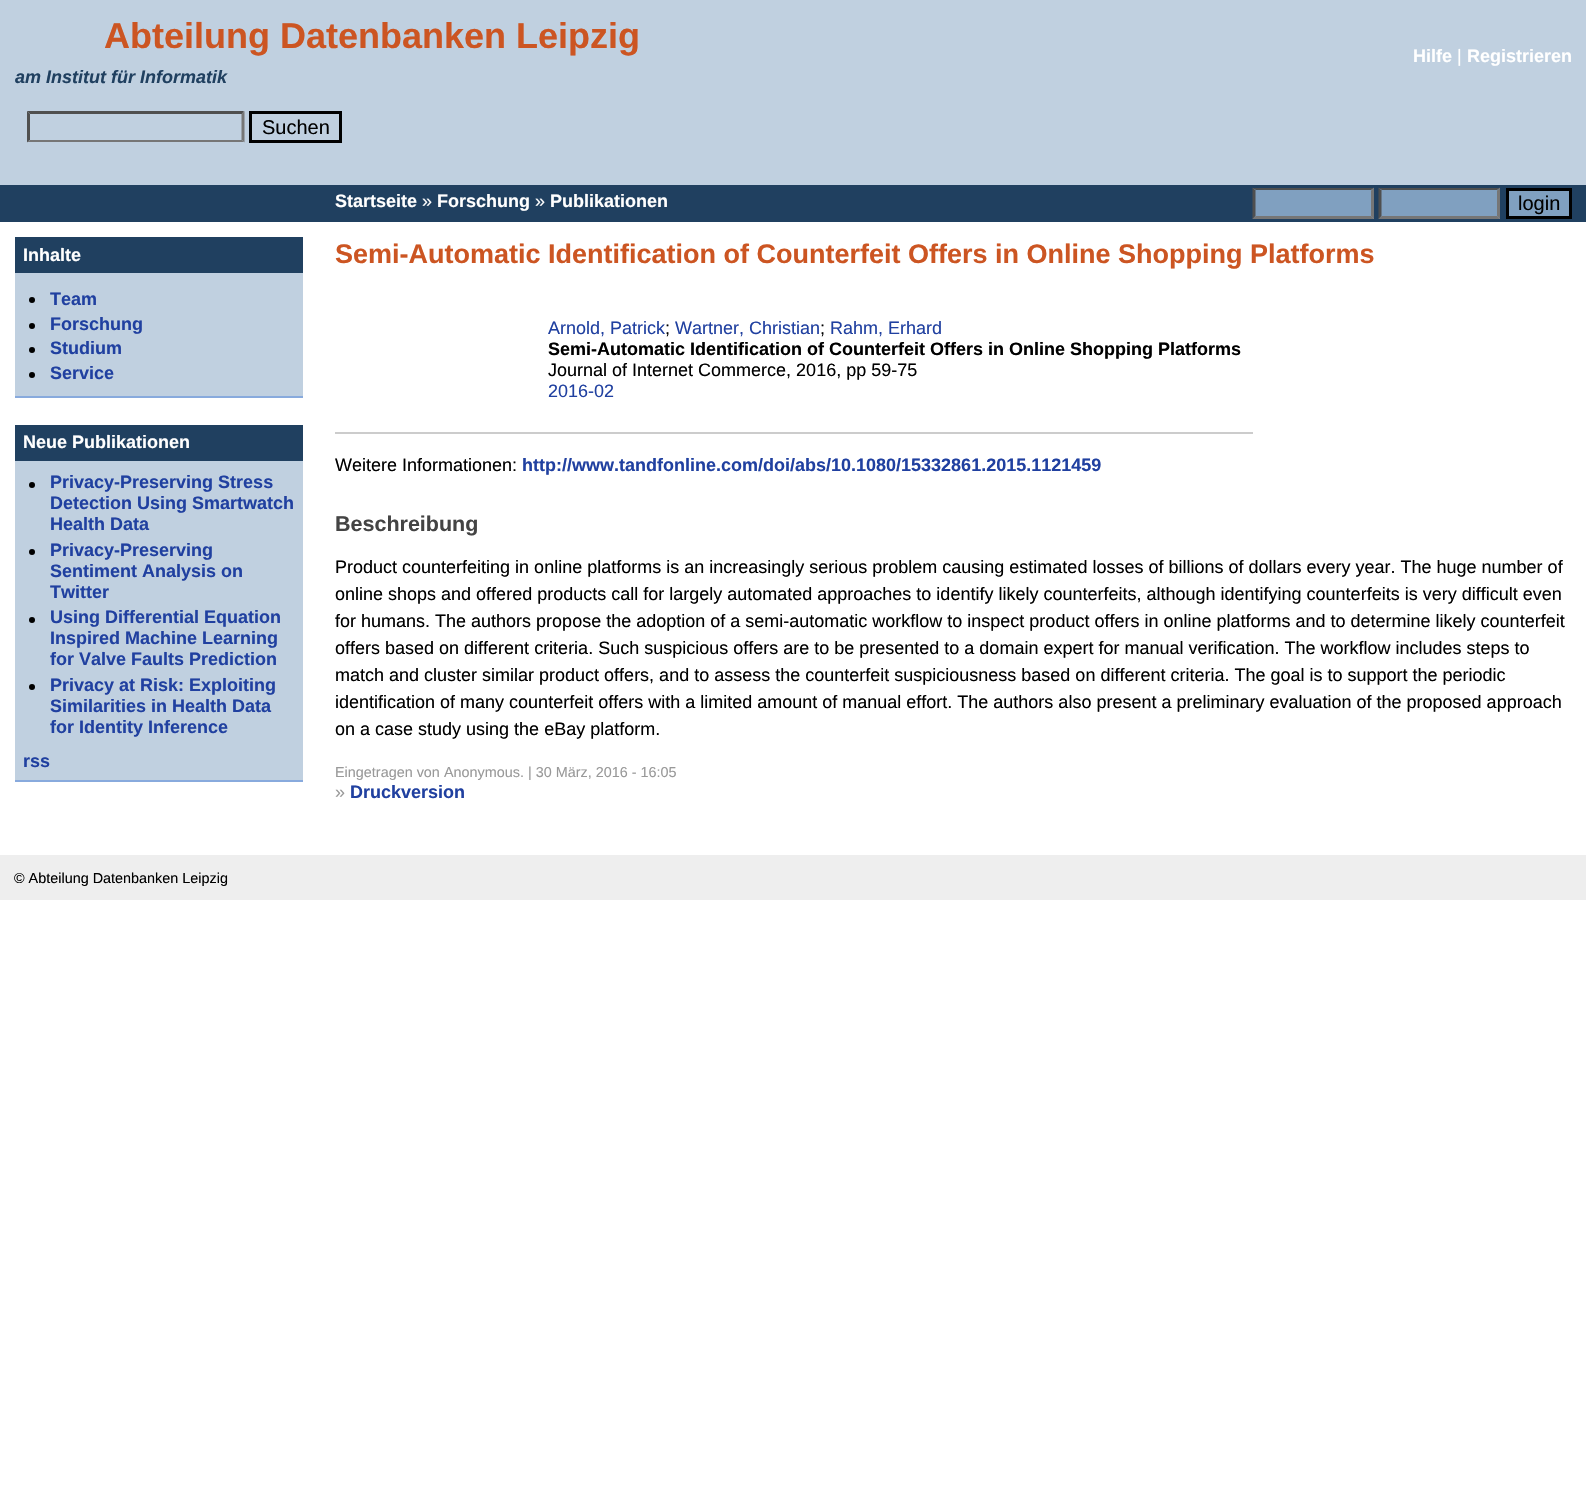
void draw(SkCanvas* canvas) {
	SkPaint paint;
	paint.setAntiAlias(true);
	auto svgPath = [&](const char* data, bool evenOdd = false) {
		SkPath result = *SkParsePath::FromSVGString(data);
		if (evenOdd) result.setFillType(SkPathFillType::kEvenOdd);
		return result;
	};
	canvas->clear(0xffffffff);
	paint.setColor(0xffc0d0e0);
	canvas->drawRect(SkRect::MakeXYWH(0, 0, 1586, 185), paint);
	SkFont f1(fontMgr->matchFamilyStyle("Liberation Sans", SkFontStyle::Bold()), 36);
	f1.setSubpixel(true);
	paint.setColor(0xffcc5522);
	canvas->drawString("Abteilung Datenbanken Leipzig", 104, 48, f1, paint);
	SkFont f2(fontMgr->matchFamilyStyle("Liberation Sans", SkFontStyle::BoldItalic()), 18);
	f2.setSubpixel(true);
	paint.setColor(0xff204060);
	canvas->drawString("am Institut für Informatik", 15, 83, f2, paint);
	paint.setColor(0xff4f4f4f);
	canvas->drawPath(svgPath("M27 111H244L242 114H30Z"), paint);
	paint.setColor(0xff767676);
	canvas->drawPath(svgPath("M244.5 111V142.5L241.5 139.5V114Z"), paint);
	canvas->drawPath(svgPath("M244 142H27L30 140H242Z"), paint);
	paint.setColor(0xff4f4f4f);
	canvas->drawPath(svgPath("M27 142.5V111L30 114V139.5Z"), paint);
	paint.setStroke(true);
	paint.setStrokeWidth(3);
	paint.setColor(0xff000000);
	canvas->drawRect(SkRect::MakeXYWH(250.5, 112.5, 90, 29), paint);
	SkFont f3(fontMgr->matchFamilyStyle("Liberation Sans", SkFontStyle::Normal()), 20);
	f3.setSubpixel(true);
	paint.setStroke(false);
	canvas->drawString("Suchen", 262, 134, f3, paint);
	SkFont f4(fontMgr->matchFamilyStyle("Liberation Sans", SkFontStyle::Bold()), 18);
	f4.setSubpixel(true);
	paint.setColor(0xffffffff);
	canvas->drawString("Hilfe", 1413, 62, f4, paint);
	SkFont f5(fontMgr->matchFamilyStyle("Liberation Sans", SkFontStyle::Normal()), 18);
	f5.setSubpixel(true);
	canvas->drawString("|", 1457, 62, f5, paint);
	canvas->drawString("Registrieren", 1467, 62, f4, paint);
	paint.setColor(0xff204060);
	canvas->drawRect(SkRect::MakeXYWH(0, 185, 1586, 37), paint);
	paint.setColor(0xffffffff);
	canvas->drawString("Startseite", 335, 207, f4, paint);
	canvas->drawString("»", 422, 207, f5, paint);
	canvas->drawString("Forschung", 437, 207, f4, paint);
	canvas->drawString("»", 535, 207, f5, paint);
	canvas->drawString("Publikationen", 550, 207, f4, paint);
	paint.setColor(0xff80a0c0);
	canvas->drawRect(SkRect::MakeXYWH(1253, 188, 121, 31), paint);
	paint.setColor(0xff4f4f4f);
	canvas->drawPath(svgPath("M1252 188H1374L1371 190H1256Z"), paint);
	paint.setColor(0xff767676);
	canvas->drawPath(svgPath("M1374 187.5V219L1371 216V190.5Z"), paint);
	canvas->drawPath(svgPath("M1374 219H1252L1256 216H1371Z"), paint);
	paint.setColor(0xff4f4f4f);
	canvas->drawPath(svgPath("M1252.5 219V187.5L1255.5 190.5V216Z"), paint);
	paint.setColor(0xff80a0c0);
	canvas->drawRect(SkRect::MakeXYWH(1379, 188, 121, 31), paint);
	paint.setColor(0xff4f4f4f);
	canvas->drawPath(svgPath("M1378 188H1500L1497 190H1382Z"), paint);
	paint.setColor(0xff767676);
	canvas->drawPath(svgPath("M1500 187.5V219L1497 216V190.5Z"), paint);
	canvas->drawPath(svgPath("M1500 219H1378L1382 216H1497Z"), paint);
	paint.setColor(0xff4f4f4f);
	canvas->drawPath(svgPath("M1378.5 219V187.5L1381.5 190.5V216Z"), paint);
	paint.setColor(0xff80a0c0);
	canvas->drawRect(SkRect::MakeXYWH(1507.5, 189.5, 63, 28), paint);
	paint.setStroke(true);
	paint.setColor(0xff000000);
	canvas->drawRect(SkRect::MakeXYWH(1507.5, 189.5, 63, 28), paint);
	paint.setStroke(false);
	canvas->drawString("login", 1518, 210, f3, paint);
	paint.setColor(0xffc0d0e0);
	canvas->drawRect(SkRect::MakeXYWH(15, 273, 288, 123), paint);
	paint.setColor(0xff88aadd);
	canvas->drawRect(SkRect::MakeXYWH(15, 396, 288, 2), paint);
	paint.setColor(0xff204060);
	canvas->drawRect(SkRect::MakeXYWH(15, 237, 288, 36), paint);
	paint.setColor(0xffffffff);
	canvas->drawString("Inhalte", 23, 261, f4, paint);
	paint.setColor(0xff000000);
	canvas->drawCircle(32, 300, 3, paint);
	paint.setColor(0xff2040a0);
	canvas->drawString("Team", 50, 305, f4, paint);
	paint.setColor(0xff000000);
	canvas->drawCircle(32, 326, 3, paint);
	paint.setColor(0xff2040a0);
	canvas->drawString("Forschung", 50, 330, f4, paint);
	paint.setColor(0xff000000);
	canvas->drawCircle(32, 350, 3, paint);
	paint.setColor(0xff2040a0);
	canvas->drawString("Studium", 50, 354, f4, paint);
	paint.setColor(0xff000000);
	canvas->drawCircle(32, 375, 3, paint);
	paint.setColor(0xff2040a0);
	canvas->drawString("Service", 50, 379, f4, paint);
	paint.setColor(0xffc0d0e0);
	canvas->drawRect(SkRect::MakeXYWH(15, 461, 288, 319), paint);
	paint.setColor(0xff88aadd);
	canvas->drawRect(SkRect::MakeXYWH(15, 780, 288, 2), paint);
	paint.setColor(0xff204060);
	canvas->drawRect(SkRect::MakeXYWH(15, 425, 288, 36), paint);
	paint.setColor(0xffffffff);
	canvas->drawString("Neue Publikationen", 23, 448, f4, paint);
	paint.setColor(0xff000000);
	canvas->drawCircle(32, 485, 3, paint);
	paint.setColor(0xff2040a0);
	canvas->drawString("Privacy-Preserving Stress", 50, 488, f4, paint);
	canvas->drawString("Detection Using Smartwatch", 50, 509, f4, paint);
	canvas->drawString("Health Data", 50, 530, f4, paint);
	paint.setColor(0xff000000);
	canvas->drawCircle(32, 552, 3, paint);
	paint.setColor(0xff2040a0);
	canvas->drawString("Privacy-Preserving", 50, 556, f4, paint);
	canvas->drawString("Sentiment Analysis on", 50, 577, f4, paint);
	canvas->drawString("Twitter", 50, 598, f4, paint);
	paint.setColor(0xff000000);
	canvas->drawCircle(32, 620, 3, paint);
	paint.setColor(0xff2040a0);
	canvas->drawString("Using Differential Equation", 50, 623, f4, paint);
	canvas->drawString("Inspired Machine Learning", 50, 644, f4, paint);
	canvas->drawString("for Valve Faults Prediction", 50, 665, f4, paint);
	paint.setColor(0xff000000);
	canvas->drawCircle(32, 687, 3, paint);
	paint.setColor(0xff2040a0);
	canvas->drawString("Privacy at Risk: Exploiting", 50, 691, f4, paint);
	canvas->drawString("Similarities in Health Data", 50, 712, f4, paint);
	canvas->drawString("for Identity Inference", 50, 733, f4, paint);
	canvas->drawString("rss", 23, 767, f4, paint);
	SkFont f6(fontMgr->matchFamilyStyle("Liberation Sans", SkFontStyle::Bold()), 27);
	f6.setSubpixel(true);
	paint.setColor(0xffcc5522);
	canvas->drawString("Semi-Automatic Identification of Counterfeit Offers in Online Shopping Platforms", 335, 263, f6, paint);
	paint.setColor(0xffcccccc);
	canvas->drawRect(SkRect::MakeXYWH(335, 432, 918, 2), paint);
	paint.setColor(0xff2040a0);
	canvas->drawString("Arnold, Patrick", 548, 334, f5, paint);
	paint.setColor(0xff000000);
	canvas->drawString(";", 665, 334, f5, paint);
	paint.setColor(0xff2040a0);
	canvas->drawString("Wartner, Christian", 675, 334, f5, paint);
	paint.setColor(0xff000000);
	canvas->drawString(";", 820, 334, f5, paint);
	paint.setColor(0xff2040a0);
	canvas->drawString("Rahm, Erhard", 830, 334, f5, paint);
	paint.setColor(0xff000000);
	canvas->drawString("Semi-Automatic Identification of Counterfeit Offers in Online Shopping Platforms", 548, 355, f4, paint);
	canvas->drawString("Journal of Internet Commerce, 2016, pp 59-75", 548, 376, f5, paint);
	paint.setColor(0xff2040a0);
	canvas->drawString("2016-02", 548, 397, f5, paint);
	paint.setColor(0xff000000);
	canvas->drawString("Weitere Informationen:", 335, 471, f5, paint);
	paint.setColor(0xff2040a0);
	canvas->drawString("http://www.tandfonline.com/doi/abs/10.1080/15332861.2015.1121459", 522, 471, f4, paint);
	SkFont f7(fontMgr->matchFamilyStyle("Liberation Sans", SkFontStyle::Bold()), 21.5);
	f7.setSubpixel(true);
	paint.setColor(0xff444444);
	canvas->drawString("Beschreibung", 335, 531, f7, paint);
	paint.setColor(0xff000000);
	canvas->drawString("Product counterfeiting in online platforms is an increasingly serious problem causing estimated losses of billions of dollars every year. The huge number of", 335, 573, f5, paint);
	canvas->drawString("online shops and offered products call for largely automated approaches to identify likely counterfeits, although identifying counterfeits is very difficult even", 335, 600, f5, paint);
	canvas->drawString("for humans. The authors propose the adoption of a semi-automatic workflow to inspect product offers in online platforms and to determine likely counterfeit", 335, 627, f5, paint);
	canvas->drawString("offers based on different criteria. Such suspicious offers are to be presented to a domain expert for manual verification. The workflow includes steps to", 335, 654, f5, paint);
	canvas->drawString("match and cluster similar product offers, and to assess the counterfeit suspiciousness based on different criteria. The goal is to support the periodic", 335, 681, f5, paint);
	canvas->drawString("identification of many counterfeit offers with a limited amount of manual effort. The authors also present a preliminary evaluation of the proposed approach", 335, 708, f5, paint);
	canvas->drawString("on a case study using the eBay platform.", 335, 735, f5, paint);
	SkFont f8(fontMgr->matchFamilyStyle("Liberation Sans", SkFontStyle::Normal()), 14.4);
	f8.setSubpixel(true);
	paint.setColor(0xff999999);
	canvas->drawString("Eingetragen von Anonymous. | 30 März, 2016 - 16:05", 335, 777, f8, paint);
	canvas->drawString("»", 335, 798, f5, paint);
	paint.setColor(0xff2040a0);
	canvas->drawString("Druckversion", 350, 798, f4, paint);
	paint.setColor(0xffeeeeee);
	canvas->drawRect(SkRect::MakeXYWH(0, 855, 1586, 45), paint);
	paint.setColor(0xff000000);
	canvas->drawString("© Abteilung Datenbanken Leipzig", 14, 883, f8, paint);
}
